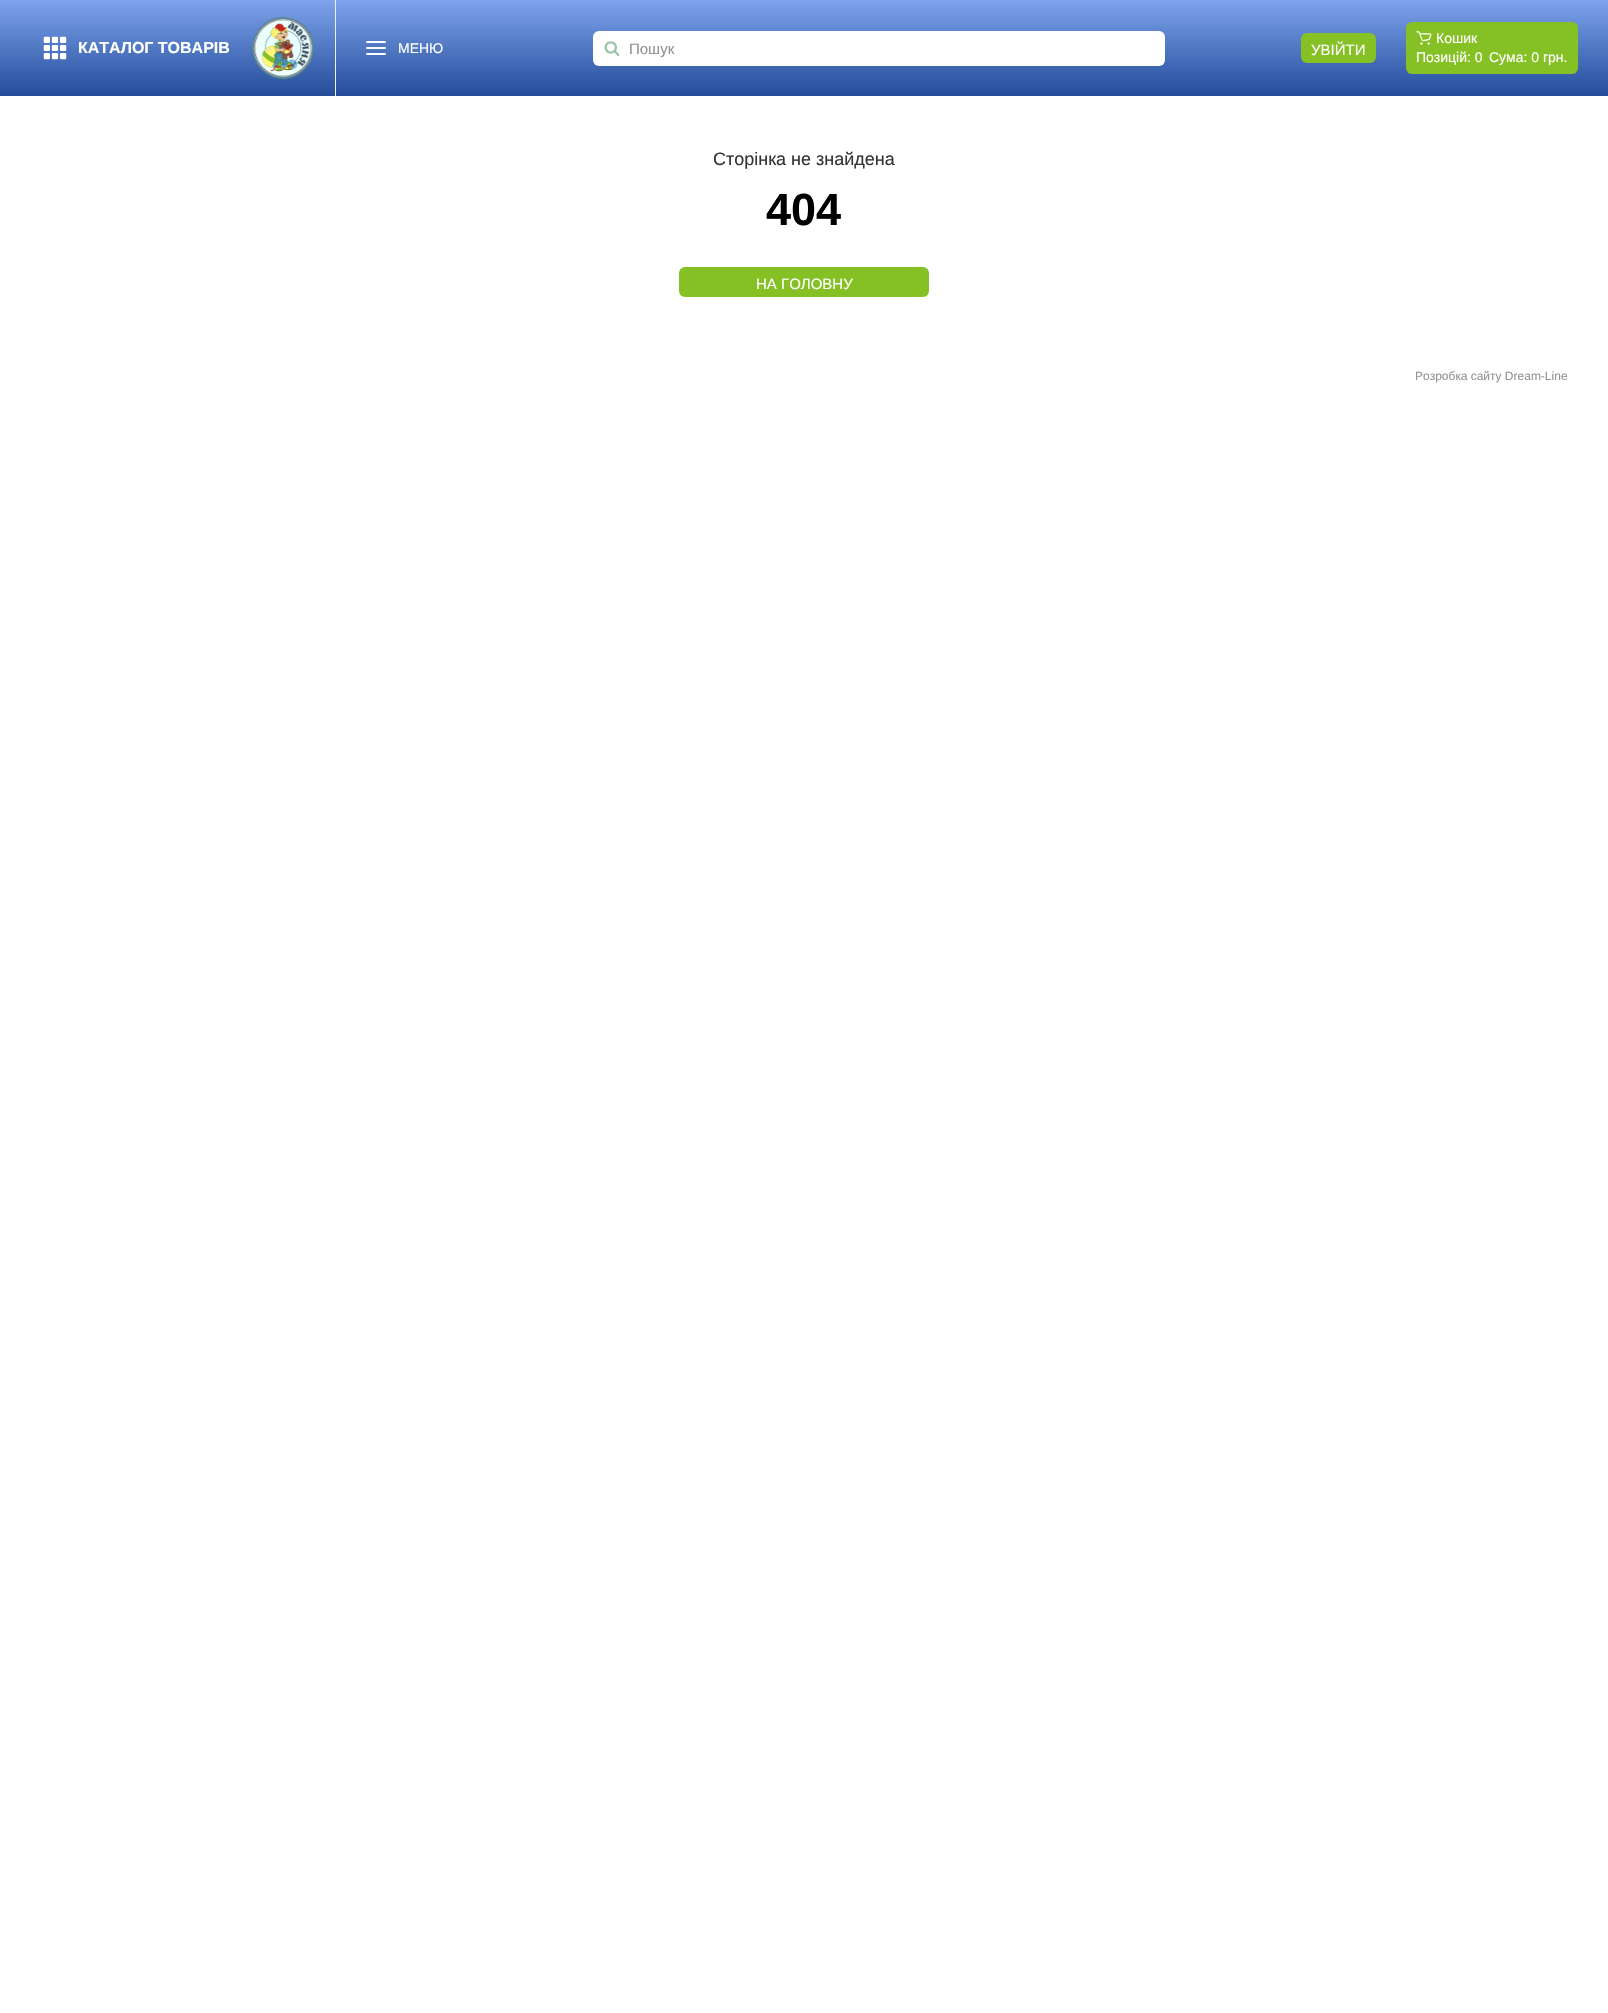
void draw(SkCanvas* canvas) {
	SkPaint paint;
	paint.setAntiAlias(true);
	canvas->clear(0xffffffff);
	{
		const SkColor colors[] = {0xff7da3ec, 0xff244c99};
		const float stops[] = {0, 1};
		const SkPoint ends[] = {{804, 0}, {804, 96}};
		paint.setShader(SkGradientShader::MakeLinear(ends, colors, stops, 2, SkTileMode::kClamp));
		paint.setAlpha(255);
	}
	canvas->drawRect(SkRect::MakeXYWH(0, 0, 1608, 96), paint);
	canvas->drawImageRect(SkImages::DeferredFromEncodedData(SkData::MakeFromFileName("img1.png")), SkRect::MakeXYWH(43, 36, 24, 24), SkSamplingOptions());
	SkFont f1(fontMgr->matchFamilyStyle("Liberation Sans", SkFontStyle::Bold()), 16);
	f1.setSubpixel(true);
	paint.setShader(nullptr);
	paint.setColor(0xffffffff);
	canvas->drawString("КАТАЛОГ ТОВАРІВ", 78, 53, f1, paint);
	canvas->drawImageRect(SkImages::DeferredFromEncodedData(SkData::MakeFromFileName("img2.png")), SkRect::MakeXYWH(251, 16, 64, 64), SkSamplingOptions());
	paint.setColor(0xffeeeeee);
	canvas->drawRect(SkRect::MakeXYWH(335, 0, 1, 96), paint);
	paint.setColor(0xffffffff);
	canvas->drawRoundRect(SkRect::MakeXYWH(366, 47, 20, 2), 1, 1, paint);
	canvas->drawRoundRect(SkRect::MakeXYWH(366, 41, 20, 2), 1, 1, paint);
	canvas->drawRoundRect(SkRect::MakeXYWH(366, 53, 20, 2), 1, 1, paint);
	SkFont f2(fontMgr->matchFamilyStyle("Liberation Sans", SkFontStyle::Normal()), 14);
	f2.setSubpixel(true);
	canvas->drawString("МЕНЮ", 398, 53, f2, paint);
	canvas->drawRoundRect(SkRect::MakeXYWH(593, 31, 572, 35), 6, 6, paint);
	canvas->drawImageRect(SkImages::DeferredFromEncodedData(SkData::MakeFromFileName("img3.png")), SkRect::MakeXYWH(604, 41, 16, 15), SkSamplingOptions());
	SkFont f3(fontMgr->matchFamilyStyle("Liberation Sans", SkFontStyle::Normal()), 15);
	f3.setSubpixel(true);
	paint.setColor(0xff929292);
	canvas->drawString("Пошук", 629, 54, f3, paint);
	paint.setColor(0xff85c025);
	canvas->drawRoundRect(SkRect::MakeXYWH(1301, 33, 75, 30), 6, 6, paint);
	paint.setColor(0xffffffff);
	canvas->drawString("УВІЙТИ", 1311, 55, f3, paint);
	paint.setColor(0xff85c025);
	canvas->drawRoundRect(SkRect::MakeXYWH(1406, 22, 172, 52), 6, 6, paint);
	canvas->drawImageRect(SkImages::DeferredFromEncodedData(SkData::MakeFromFileName("img4.png")), SkRect::MakeXYWH(1416, 31, 16, 14), SkSamplingOptions());
	paint.setColor(0xffffffff);
	canvas->drawString("Кошик", 1436, 43, f2, paint);
	canvas->drawString("Позицій: 0", 1416, 62, f2, paint);
	canvas->drawString("Сума: 0 грн.", 1489, 62, f2, paint);
	SkFont f4(fontMgr->matchFamilyStyle("Liberation Sans", SkFontStyle::Normal()), 18);
	f4.setSubpixel(true);
	paint.setColor(0xff333333);
	canvas->drawString("Сторінка не знайдена", 713, 165, f4, paint);
	SkFont f5(fontMgr->matchFamilyStyle("Liberation Sans", SkFontStyle::Bold()), 45);
	f5.setSubpixel(true);
	paint.setColor(0xff000000);
	canvas->drawString("404", 766, 225, f5, paint);
	paint.setColor(0xff85c025);
	canvas->drawRoundRect(SkRect::MakeXYWH(679, 267, 250, 30), 6, 6, paint);
	paint.setColor(0xffffffff);
	canvas->drawString("НА ГОЛОВНУ", 756, 289, f3, paint);
	SkFont f6(fontMgr->matchFamilyStyle("Liberation Sans", SkFontStyle::Normal()), 12);
	f6.setSubpixel(true);
	paint.setColor(0xff929292);
	canvas->drawString("Розробка сайту Dream-Line", 1415, 380, f6, paint);
}
